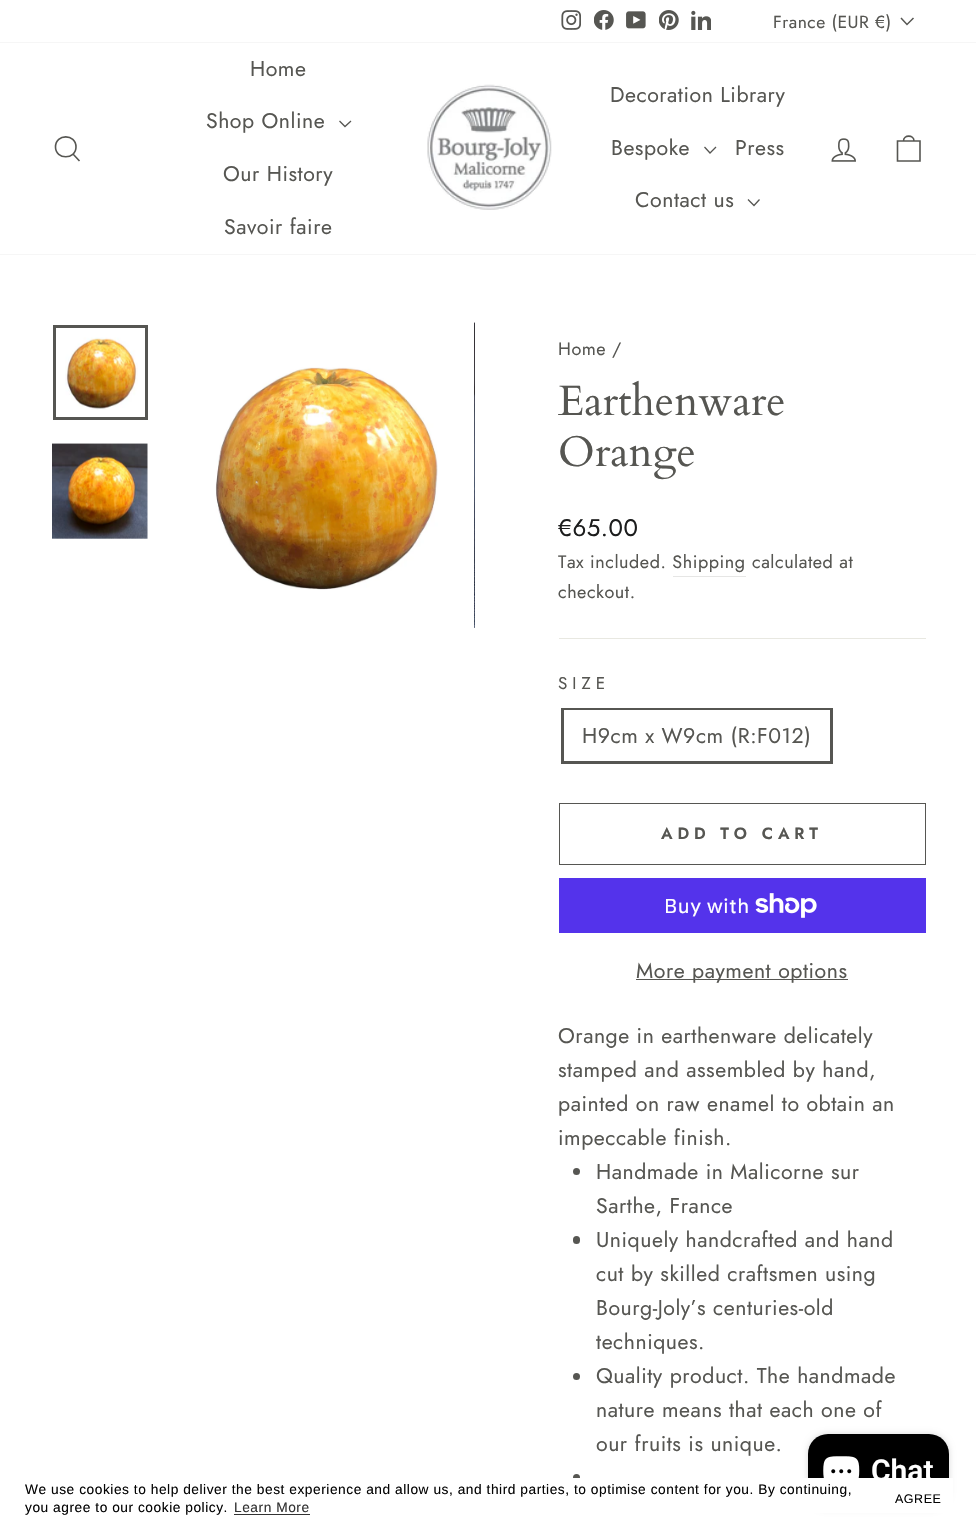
void draw(SkCanvas* canvas) {
	SkPaint paint;
	paint.setAntiAlias(true);
	auto spacedText = [&](const char* s, float x, float y, const SkFont& font, const SkPaint& ink, float letter, float word) {
		std::vector<SkGlyphID> glyphs(font.countText(s, strlen(s), SkTextEncoding::kUTF8));
		std::vector<float> xs(glyphs.size());
		font.textToGlyphs(s, strlen(s), SkTextEncoding::kUTF8, glyphs);
		font.getXPos(glyphs, xs, x);
		float extra = 0;
		for (size_t i = 0; i < glyphs.size(); i++) {
			xs[i] += extra;
			extra += letter + word * (glyphs[i] == font.unicharToGlyph(' '));
		}
		canvas->drawTextBlob(SkTextBlob::MakeFromPosHGlyphs(glyphs, xs, y, font), 0, 0, ink);
	};
	auto svgPath = [&](const char* data, bool evenOdd = false) {
		SkPath result = *SkParsePath::FromSVGString(data);
		if (evenOdd) result.setFillType(SkPathFillType::kEvenOdd);
		return result;
	};
	canvas->clear(0xffffffff);
	canvas->drawImageRect(SkImages::DeferredFromEncodedData(SkData::MakeFromFileName("img1.png")), SkRect::MakeXYWH(561, 10, 20, 20), SkSamplingOptions());
	canvas->drawImageRect(SkImages::DeferredFromEncodedData(SkData::MakeFromFileName("img2.png")), SkRect::MakeXYWH(594, 10, 20, 20), SkSamplingOptions());
	canvas->drawImageRect(SkImages::DeferredFromEncodedData(SkData::MakeFromFileName("img3.png")), SkRect::MakeXYWH(626, 11, 20, 18), SkSamplingOptions());
	canvas->drawImageRect(SkImages::DeferredFromEncodedData(SkData::MakeFromFileName("img4.png")), SkRect::MakeXYWH(659, 10, 20, 20), SkSamplingOptions());
	canvas->drawImageRect(SkImages::DeferredFromEncodedData(SkData::MakeFromFileName("img5.png")), SkRect::MakeXYWH(691, 10, 20, 20), SkSamplingOptions());
	SkFont f1(fontMgr->matchFamilyStyle("Jost", SkFontStyle::Normal()), 17.5);
	f1.setSubpixel(true);
	paint.setColor(0xff565652);
	spacedText("France (EUR €)", 773, 28, f1, paint, 0.5, 0);
	paint.setStroke(true);
	paint.setStrokeWidth(1.5);
	canvas->drawPath(svgPath("M901 18L907 24.5L913.5 18"), paint);
	paint.setStroke(false);
	paint.setColor(0x33000000);
	paint.setMaskFilter(SkMaskFilter::MakeBlur(kNormal_SkBlurStyle, 0.5));
	canvas->drawRect(SkRect::MakeXYWH(0, 43, 976, 211), paint);
	paint.setMaskFilter(nullptr);
	paint.setColor(0xffffffff);
	canvas->drawRect(SkRect::MakeXYWH(0, 43, 976, 211), paint);
	paint.setStroke(true);
	paint.setStrokeWidth(1.6);
	paint.setColor(0xff565652);
	canvas->drawPath(svgPath("M76 147C76 160 55.5 160 55.5 147C55.5 133.5 76 133.5 76 147ZM79.5 161L73 154"), paint);
	SkFont f2(fontMgr->matchFamilyStyle("Jost", SkFontStyle::Normal()), 21.25);
	f2.setSubpixel(true);
	paint.setStroke(false);
	spacedText("Home", 250, 76, f2, paint, 0.53, 0);
	spacedText("Shop Online", 206, 128, f2, paint, 0.53, 0);
	paint.setStroke(true);
	paint.setStrokeWidth(1.3);
	canvas->drawPath(svgPath("M339.5 121L345 126.5L351 121"), paint);
	paint.setStroke(false);
	spacedText("Our History", 223, 181, f2, paint, 0.53, 0);
	spacedText("Savoir faire", 224, 234, f2, paint, 0.53, 0);
	canvas->drawImageRect(SkImages::DeferredFromEncodedData(SkData::MakeFromFileName("img6.png")), SkRect::MakeXYWH(427, 84, 125, 126), SkSamplingOptions());
	spacedText("Decoration Library", 610, 102, f2, paint, 0.53, 0);
	spacedText("Bespoke", 611, 155, f2, paint, 0.53, 0);
	paint.setStroke(true);
	canvas->drawPath(svgPath("M704.5 147L710 153L716 147"), paint);
	paint.setStroke(false);
	spacedText("Press", 735, 155, f2, paint, 0.53, 0);
	spacedText("Contact us", 635, 207, f2, paint, 0.53, 0);
	paint.setStroke(true);
	canvas->drawPath(svgPath("M748 199.5L754 205.5L759.5 199.5"), paint);
	canvas->drawImageRect(SkImages::DeferredFromEncodedData(SkData::MakeFromFileName("img7.png")), SkRect::MakeXYWH(831, 138, 25, 24), SkSamplingOptions());
	paint.setStrokeWidth(1.6);
	canvas->drawPath(svgPath("M897.5 141H920V161H897.5ZM903.5 141C903.5 134.5 914 134.5 914 141"), paint);
	canvas->drawImageRect(SkImages::DeferredFromEncodedData(SkData::MakeFromFileName("img8.png")), SkRect::MakeXYWH(65, 337, 73, 73), SkSamplingOptions());
	paint.setStrokeWidth(3);
	canvas->drawRect(SkRect::MakeXYWH(54.5, 326.5, 92, 92), paint);
	canvas->drawImageRect(SkImages::DeferredFromEncodedData(SkData::MakeFromFileName("img9.png")), SkRect::MakeXYWH(52, 443, 96, 96), SkSamplingOptions());
	canvas->drawImageRect(SkImages::DeferredFromEncodedData(SkData::MakeFromFileName("img10.png")), SkRect::MakeXYWH(215, 367, 223, 223), SkSamplingOptions());
	canvas->drawImageRect(SkImages::DeferredFromEncodedData(SkData::MakeFromFileName("img11.png")), SkRect::MakeXYWH(474, 322, 1, 306), SkSamplingOptions());
	SkFont f3(fontMgr->matchFamilyStyle("Jost", SkFontStyle::Normal()), 18);
	f3.setSubpixel(true);
	paint.setStroke(false);
	spacedText("Home /", 558, 355, f3, paint, 0.53, 0);
	SkFont f4(fontMgr->matchFamilyStyle("Cardo", SkFontStyle::Normal()), 42.5);
	f4.setSubpixel(true);
	canvas->drawString("Earthenware", 558, 415, f4, paint);
	canvas->drawString("Orange", 558, 466, f4, paint);
	SkFont f5(fontMgr->matchFamilyStyle("Jost", SkFontStyle::Normal()), 24);
	f5.setSubpixel(true);
	paint.setColor(0xff1c1d1d);
	spacedText("€65.00", 558, 536, f5, paint, 0.53, 0);
	paint.setColor(0xff565652);
	spacedText("Tax included. Shipping", 558, 568, f3, paint, 0.53, 0);
	spacedText("calculated at", 752, 568, f3, paint, 0.53, 0);
	paint.setColor(0xffe6e6e5);
	canvas->drawRect(SkRect::MakeXYWH(673, 576, 73, 1), paint);
	paint.setColor(0xff565652);
	spacedText("checkout.", 558, 598, f3, paint, 0.53, 0);
	paint.setColor(0xffe8e8e1);
	canvas->drawRect(SkRect::MakeXYWH(559, 638, 367, 1), paint);
	SkFont f6(fontMgr->matchFamilyStyle("Jost", SkFontStyle::Normal()), 17);
	f6.setSubpixel(true);
	paint.setColor(0xff565652);
	spacedText("SIZE", 558, 689, f6, paint, 5, 0);
	paint.setStroke(true);
	canvas->drawRect(SkRect::MakeXYWH(562.5, 709.5, 269, 53), paint);
	paint.setStroke(false);
	paint.setColor(0xffffffff);
	canvas->drawRect(SkRect::MakeXYWH(564, 710, 266, 1), paint);
	paint.setColor(0xff565652);
	spacedText("H9cm x W9cm (R:F012)", 582, 743, f2, paint, 0.53, 0);
	paint.setStroke(true);
	paint.setStrokeWidth(1);
	canvas->drawRect(SkRect::MakeXYWH(559.5, 803.5, 366, 61), paint);
	SkFont f7(fontMgr->matchFamilyStyle("Jost", SkFontStyle(600, SkFontStyle::kNormal_Width, SkFontStyle::kUpright_Slant)), 16.25);
	f7.setSubpixel(true);
	paint.setStroke(false);
	spacedText("ADD TO CART", 661, 839, f7, paint, 4.9, 0);
	paint.setColor(0xff5433eb);
	canvas->drawRect(SkRect::MakeXYWH(559, 878, 367, 55), paint);
	SkFont f8(fontMgr->matchFamilyStyle("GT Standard", SkFontStyle::Normal()), 20);
	f8.setSubpixel(true);
	paint.setColor(0xffffffff);
	spacedText("Buy with", 664, 913, f8, paint, 0.53, 0);
	canvas->drawImageRect(SkImages::DeferredFromEncodedData(SkData::MakeFromFileName("img12.png")), SkRect::MakeXYWH(755, 893, 62, 25), SkSamplingOptions());
	paint.setColor(0xff565652);
	canvas->drawRect(SkRect::MakeXYWH(636, 979, 212, 1), paint);
	spacedText("More payment options", 636, 978, f2, paint, 0.53, 0);
	spacedText("Orange in earthenware delicately", 558, 1043, f2, paint, 0.53, 0);
	spacedText("stamped and assembled by hand,", 558, 1077, f2, paint, 0.53, 0);
	spacedText("painted on raw enamel to obtain an", 558, 1111, f2, paint, 0.53, 0);
	spacedText("impeccable finish.", 558, 1145, f2, paint, 0.53, 0);
	canvas->drawCircle(576.5, 1171.5, 3.5, paint);
	spacedText("Handmade in Malicorne sur", 596, 1179, f2, paint, 0.53, 0);
	spacedText("Sarthe, France", 596, 1213, f2, paint, 0.53, 0);
	canvas->drawRoundRect(SkRect::MakeXYWH(573, 1236, 7, 8), 3.5, 3.5, paint);
	spacedText("Uniquely handcrafted and hand", 596, 1247, f2, paint, 0.53, 0);
	spacedText("cut by skilled craftsmen using", 596, 1281, f2, paint, 0.53, 0);
	spacedText("Bourg-Joly’s centuries-old", 596, 1315, f2, paint, 0.53, 0);
	spacedText("techniques.", 596, 1349, f2, paint, 0.53, 0);
	canvas->drawCircle(576.5, 1376.5, 3.5, paint);
	spacedText("Quality product. The handmade", 596, 1383, f2, paint, 0.53, 0);
	spacedText("nature means that each one of", 596, 1417, f2, paint, 0.53, 0);
	spacedText("our fruits is unique.", 596, 1451, f2, paint, 0.53, 0);
	canvas->drawCircle(576.5, 1477.5, 3.5, paint);
	paint.setColor(0x26000000);
	paint.setMaskFilter(SkMaskFilter::MakeBlur(kNormal_SkBlurStyle, 3));
	canvas->drawRoundRect(SkRect::MakeXYWH(808, 1434, 141, 75), 20, 20, paint);
	paint.setMaskFilter(nullptr);
	paint.setColor(0xff000000);
	canvas->drawRoundRect(SkRect::MakeXYWH(808, 1434, 141, 75), 20, 20, paint);
	canvas->drawImageRect(SkImages::DeferredFromEncodedData(SkData::MakeFromFileName("img13.png")), SkRect::MakeXYWH(823, 1456, 37, 22), SkSamplingOptions());
	SkFont f9(fontMgr->matchFamilyStyle("Roboto", SkFontStyle(600, SkFontStyle::kNormal_Width, SkFontStyle::kUpright_Slant)), 30);
	f9.setSubpixel(true);
	paint.setColor(0xffffffff);
	canvas->drawString("Chat", 871, 1481, f9, paint);
	canvas->drawRect(SkRect::MakeXYWH(573, 1478, 380, 35), paint);
	SkFont f10(fontMgr->matchFamilyStyle("Liberation Sans", SkFontStyle::Normal()), 13.75);
	f10.setSubpixel(true);
	paint.setColor(0xff050505);
	spacedText("We use cookies to help deliver the best experience and allow us, and third parties, to optimise content for you. By continuing,", 25, 1494, f10, paint, 0.53, 0);
	spacedText("you agree to our cookie policy.", 25, 1512, f10, paint, 0.53, 0);
	paint.setColor(0xff333333);
	spacedText("Learn More", 234, 1512, f10, paint, 0.53, 0);
	canvas->drawRect(SkRect::MakeXYWH(234, 1514, 76, 1), paint);
	SkFont f11(fontMgr->matchFamilyStyle("Liberation Sans", SkFontStyle::Normal()), 12.5);
	f11.setSubpixel(true);
	paint.setColor(0xff050505);
	spacedText("AGREE", 895, 1503, f11, paint, 0.53, 0);
}
